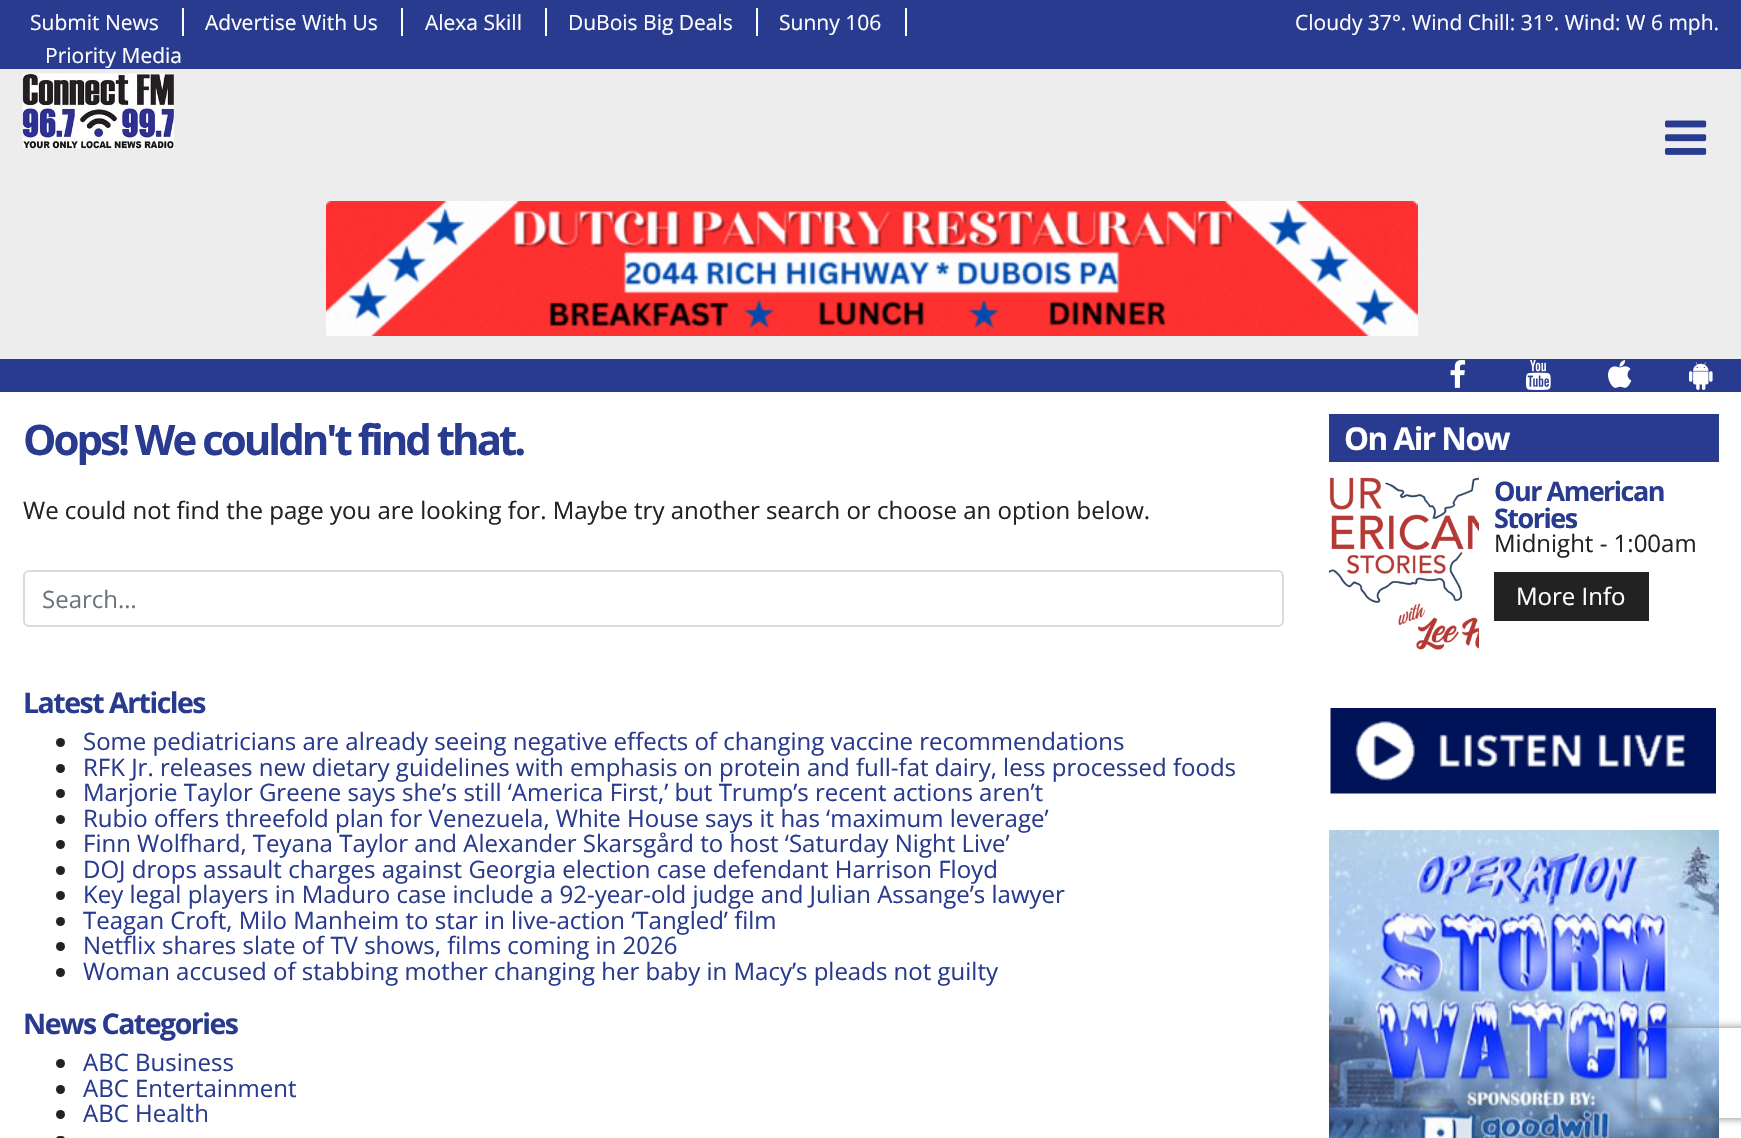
void draw(SkCanvas* canvas) {
	SkPaint paint;
	paint.setAntiAlias(true);
	auto spacedText = [&](const char* s, float x, float y, const SkFont& font, const SkPaint& ink, float letter, float word) {
		std::vector<SkGlyphID> glyphs(font.countText(s, strlen(s), SkTextEncoding::kUTF8));
		std::vector<float> xs(glyphs.size());
		font.textToGlyphs(s, strlen(s), SkTextEncoding::kUTF8, glyphs);
		font.getXPos(glyphs, xs, x);
		float extra = 0;
		for (size_t i = 0; i < glyphs.size(); i++) {
			xs[i] += extra;
			extra += letter + word * (glyphs[i] == font.unicharToGlyph(' '));
		}
		canvas->drawTextBlob(SkTextBlob::MakeFromPosHGlyphs(glyphs, xs, y, font), 0, 0, ink);
	};
	auto svgPath = [&](const char* data, bool evenOdd = false) {
		SkPath result = *SkParsePath::FromSVGString(data);
		if (evenOdd) result.setFillType(SkPathFillType::kEvenOdd);
		return result;
	};
	canvas->clear(0xffffffff);
	paint.setColor(0xff293b8e);
	canvas->drawRect(SkRect::MakeXYWH(0, 0, 1741, 69), paint);
	SkFont f1(fontMgr->matchFamilyStyle("Open Sans", SkFontStyle::Normal()), 21);
	f1.setSubpixel(true);
	paint.setColor(0xffffffff);
	canvas->drawString("Submit News", 30, 30, f1, paint);
	canvas->drawRect(SkRect::MakeXYWH(182, 8, 2, 28), paint);
	canvas->drawString("Advertise With Us", 205, 30, f1, paint);
	canvas->drawRect(SkRect::MakeXYWH(401, 8, 2, 28), paint);
	canvas->drawString("Alexa Skill", 425, 30, f1, paint);
	canvas->drawRect(SkRect::MakeXYWH(545, 8, 2, 28), paint);
	canvas->drawString("DuBois Big Deals", 568, 30, f1, paint);
	canvas->drawRect(SkRect::MakeXYWH(756, 8, 2, 28), paint);
	canvas->drawString("Sunny 106", 779, 30, f1, paint);
	canvas->drawRect(SkRect::MakeXYWH(905, 8, 2, 28), paint);
	canvas->drawString("Priority Media", 45, 63, f1, paint);
	canvas->drawString("Cloudy 37°. Wind Chill: 31°. Wind: W 6 mph.", 1295, 30, f1, paint);
	paint.setColor(0xffededed);
	canvas->drawRect(SkRect::MakeXYWH(0, 69, 1741, 290), paint);
	canvas->drawImageRect(SkImages::DeferredFromEncodedData(SkData::MakeFromFileName("img1.png")), SkRect::MakeXYWH(22, 73, 152, 76), SkSamplingOptions());
	canvas->drawImageRect(SkImages::DeferredFromEncodedData(SkData::MakeFromFileName("img2.png")), SkRect::MakeXYWH(326, 201, 1092, 135), SkSamplingOptions());
	canvas->drawImageRect(SkImages::DeferredFromEncodedData(SkData::MakeFromFileName("img3.png")), SkRect::MakeXYWH(1665, 120, 42, 35), SkSamplingOptions());
	paint.setColor(0xff293b8e);
	canvas->drawRect(SkRect::MakeXYWH(0, 359, 1741, 33), paint);
	canvas->drawImageRect(SkImages::DeferredFromEncodedData(SkData::MakeFromFileName("img4.png")), SkRect::MakeXYWH(1450, 360, 16, 28), SkSamplingOptions());
	canvas->drawImageRect(SkImages::DeferredFromEncodedData(SkData::MakeFromFileName("img5.png")), SkRect::MakeXYWH(1525, 360, 26, 30), SkSamplingOptions());
	canvas->drawImageRect(SkImages::DeferredFromEncodedData(SkData::MakeFromFileName("img6.png")), SkRect::MakeXYWH(1608, 360, 24, 28), SkSamplingOptions());
	canvas->drawImageRect(SkImages::DeferredFromEncodedData(SkData::MakeFromFileName("img7.png")), SkRect::MakeXYWH(1689, 362, 24, 28), SkSamplingOptions());
	SkFont f2(fontMgr->matchFamilyStyle("Open Sans", SkFontStyle::Bold()), 42);
	f2.setSubpixel(true);
	spacedText("Oops! We couldn't find that.", 23, 455, f2, paint, -3, 0);
	SkFont f3(fontMgr->matchFamilyStyle("Open Sans", SkFontStyle::Normal()), 24);
	f3.setSubpixel(true);
	paint.setColor(0xff222222);
	canvas->drawString("We could not find the page you are looking for. Maybe try another search or choose an option below.", 23, 519, f3, paint);
	paint.setStroke(true);
	paint.setStrokeWidth(2);
	paint.setColor(0xffdbdbdb);
	canvas->drawRoundRect(SkRect::MakeXYWH(24, 571, 1259, 55), 5, 5, paint);
	paint.setStroke(false);
	paint.setColor(0xff6c757d);
	canvas->drawString("Search…", 42, 608, f3, paint);
	SkFont f4(fontMgr->matchFamilyStyle("Open Sans", SkFontStyle::Bold()), 28.5);
	f4.setSubpixel(true);
	paint.setColor(0xff293b8e);
	spacedText("Latest Articles", 23, 713, f4, paint, -1.5, 0);
	paint.setColor(0xff222222);
	canvas->drawCircle(60.5, 742.5, 4.5, paint);
	paint.setColor(0xff293b8e);
	canvas->drawString("Some pediatricians are already seeing negative effects of changing vaccine recommendations", 83, 750, f3, paint);
	paint.setColor(0xff222222);
	canvas->drawCircle(60.5, 768.5, 4.5, paint);
	paint.setColor(0xff293b8e);
	canvas->drawString("RFK Jr. releases new dietary guidelines with emphasis on protein and full-fat dairy, less processed foods", 83, 776, f3, paint);
	paint.setColor(0xff222222);
	canvas->drawCircle(60.5, 793.5, 4.5, paint);
	paint.setColor(0xff293b8e);
	canvas->drawString("Marjorie Taylor Greene says she’s still ‘America First,’ but Trump’s recent actions aren’t", 83, 801, f3, paint);
	paint.setColor(0xff222222);
	canvas->drawCircle(60.5, 819.5, 4.5, paint);
	paint.setColor(0xff293b8e);
	canvas->drawString("Rubio offers threefold plan for Venezuela, White House says it has ‘maximum leverage’", 83, 827, f3, paint);
	paint.setColor(0xff222222);
	canvas->drawCircle(60.5, 844.5, 4.5, paint);
	paint.setColor(0xff293b8e);
	canvas->drawString("Finn Wolfhard, Teyana Taylor and Alexander Skarsgård to host ‘Saturday Night Live’", 83, 852, f3, paint);
	paint.setColor(0xff222222);
	canvas->drawCircle(60.5, 870.5, 4.5, paint);
	paint.setColor(0xff293b8e);
	canvas->drawString("DOJ drops assault charges against Georgia election case defendant Harrison Floyd", 83, 878, f3, paint);
	paint.setColor(0xff222222);
	canvas->drawCircle(60.5, 895.5, 4.5, paint);
	paint.setColor(0xff293b8e);
	canvas->drawString("Key legal players in Maduro case include a 92-year-old judge and Julian Assange’s lawyer", 83, 903, f3, paint);
	paint.setColor(0xff222222);
	canvas->drawCircle(60.5, 921.5, 4.5, paint);
	paint.setColor(0xff293b8e);
	canvas->drawString("Teagan Croft, Milo Manheim to star in live-action ‘Tangled’ film", 83, 929, f3, paint);
	paint.setColor(0xff222222);
	canvas->drawCircle(60.5, 946.5, 4.5, paint);
	paint.setColor(0xff293b8e);
	canvas->drawString("Netflix shares slate of TV shows, films coming in 2026", 83, 954, f3, paint);
	paint.setColor(0xff222222);
	canvas->drawCircle(60.5, 972.5, 4.5, paint);
	paint.setColor(0xff293b8e);
	canvas->drawString("Woman accused of stabbing mother changing her baby in Macy’s pleads not guilty", 83, 980, f3, paint);
	spacedText("News Categories", 23, 1034, f4, paint, -1.5, 0);
	paint.setColor(0xff222222);
	canvas->drawCircle(60.5, 1063.5, 4.5, paint);
	paint.setColor(0xff293b8e);
	canvas->drawString("ABC Business", 83, 1071, f3, paint);
	paint.setColor(0xff222222);
	canvas->drawCircle(60.5, 1089.5, 4.5, paint);
	paint.setColor(0xff293b8e);
	canvas->drawString("ABC Entertainment", 83, 1097, f3, paint);
	paint.setColor(0xff222222);
	canvas->drawCircle(60.5, 1114.5, 4.5, paint);
	paint.setColor(0xff293b8e);
	canvas->drawString("ABC Health", 83, 1122, f3, paint);
	paint.setColor(0xff222222);
	canvas->drawRoundRect(SkRect::MakeXYWH(56, 1136, 9, 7), 4.5, 4.5, paint);
	paint.setColor(0xff293b8e);
	canvas->drawRect(SkRect::MakeXYWH(1329, 414, 390, 48), paint);
	SkFont f5(fontMgr->matchFamilyStyle("Open Sans", SkFontStyle::Bold()), 31.5);
	f5.setSubpixel(true);
	paint.setColor(0xffffffff);
	spacedText("On Air Now", 1344, 450, f5, paint, -1.5, 0);
	canvas->drawImageRect(SkImages::DeferredFromEncodedData(SkData::MakeFromFileName("img8.png")), SkRect::MakeXYWH(1329, 477, 150, 173), SkSamplingOptions());
	SkFont f6(fontMgr->matchFamilyStyle("Open Sans", SkFontStyle::Bold()), 27);
	f6.setSubpixel(true);
	paint.setColor(0xff293b8e);
	spacedText("Our American", 1494, 501, f6, paint, -1.5, 0);
	spacedText("Stories", 1494, 528, f6, paint, -1.5, 0);
	paint.setColor(0xff222222);
	canvas->drawString("Midnight - 1:00am", 1494, 552, f3, paint);
	canvas->drawRect(SkRect::MakeXYWH(1494, 572, 155, 49), paint);
	paint.setColor(0xffffffff);
	canvas->drawString("More Info", 1516, 605, f3, paint);
	canvas->drawImageRect(SkImages::DeferredFromEncodedData(SkData::MakeFromFileName("img9.png")), SkRect::MakeXYWH(1330, 708, 386, 86), SkSamplingOptions());
	canvas->drawImageRect(SkImages::DeferredFromEncodedData(SkData::MakeFromFileName("img10.png")), SkRect::MakeXYWH(1329, 830, 390, 308), SkSamplingOptions());
	canvas->save();
	canvas->clipPath(svgPath("M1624 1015H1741V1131H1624ZM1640 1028H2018C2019.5 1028 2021 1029.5 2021 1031V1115C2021 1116.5 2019.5 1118 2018 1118H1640C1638.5 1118 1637 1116.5 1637 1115V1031C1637 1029.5 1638.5 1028 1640 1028Z", true), true);
	paint.setColor(0xff808080);
	paint.setMaskFilter(SkMaskFilter::MakeBlur(kNormal_SkBlurStyle, 4));
	canvas->drawRoundRect(SkRect::MakeXYWH(1637, 1028, 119, 90), 3, 3, paint);
	paint.setMaskFilter(nullptr);
	canvas->restore();
}
